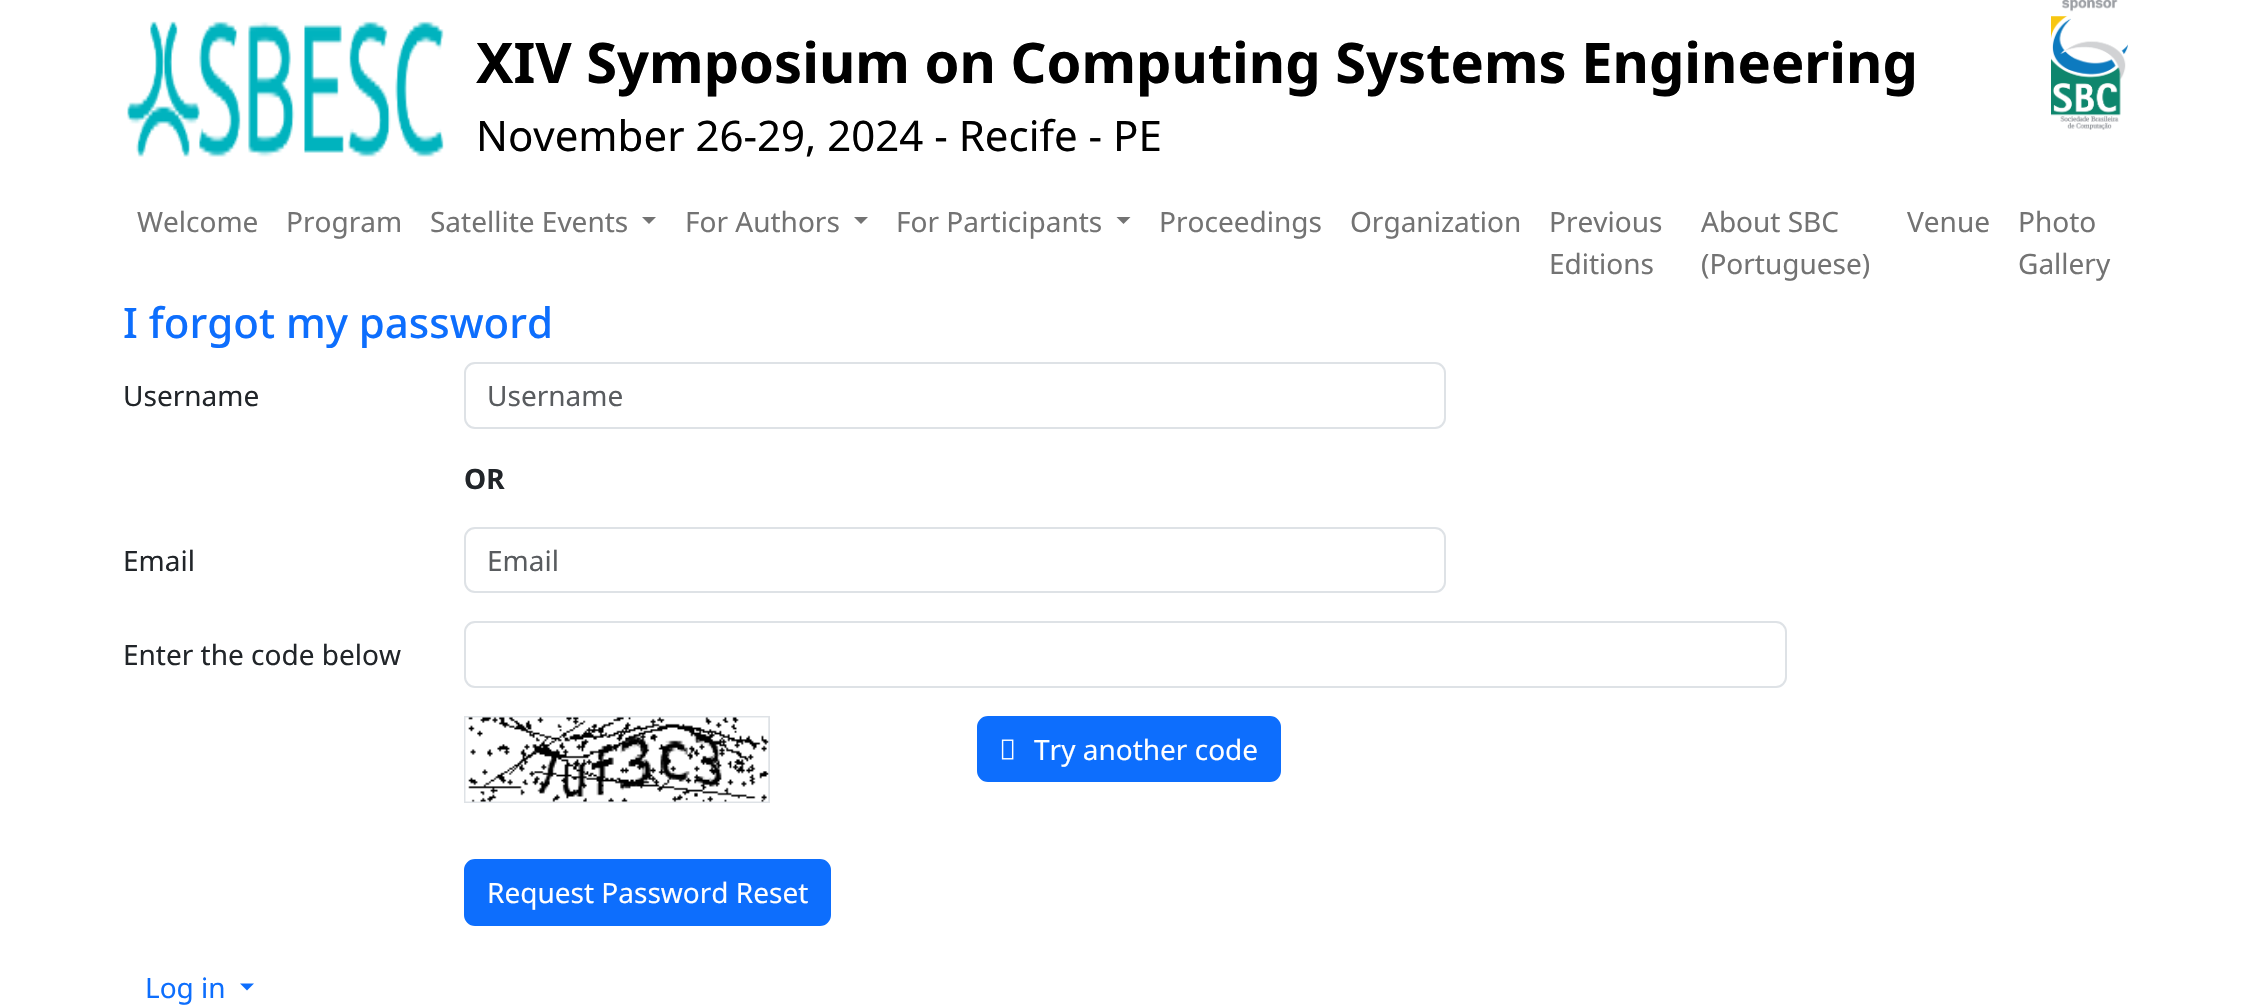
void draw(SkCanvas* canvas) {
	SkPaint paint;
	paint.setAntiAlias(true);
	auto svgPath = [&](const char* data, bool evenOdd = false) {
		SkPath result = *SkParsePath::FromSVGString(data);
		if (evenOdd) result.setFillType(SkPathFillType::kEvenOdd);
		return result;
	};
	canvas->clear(0xffffffff);
	canvas->drawImageRect(SkImages::DeferredFromEncodedData(SkData::MakeFromFileName("img1.png")), SkRect::MakeXYWH(127, 21, 317, 136), SkSamplingOptions());
	SkFont f1(fontMgr->matchFamilyStyle("Noto Sans", SkFontStyle::Bold()), 56);
	f1.setSubpixel(true);
	paint.setColor(0xff000000);
	canvas->drawString("XIV Symposium on Computing Systems Engineering", 476, 83, f1, paint);
	SkFont f2(fontMgr->matchFamilyStyle("Noto Sans", SkFontStyle::Normal()), 42);
	f2.setSubpixel(true);
	canvas->drawString("November 26-29, 2024 - Recife - PE", 476, 151, f2, paint);
	canvas->drawImageRect(SkImages::DeferredFromEncodedData(SkData::MakeFromFileName("img2.png")), SkRect::MakeXYWH(2051, 0, 77, 130), SkSamplingOptions());
	SkFont f3(fontMgr->matchFamilyStyle("Noto Sans", SkFontStyle::Normal()), 28);
	f3.setSubpixel(true);
	paint.setColor(0xff737373);
	canvas->drawString("Welcome", 137, 232, f3, paint);
	canvas->drawString("Program", 286, 232, f3, paint);
	canvas->drawString("Satellite Events", 430, 232, f3, paint);
	canvas->drawPath(svgPath("M642 217H656L649 224Z"), paint);
	canvas->drawString("For Authors", 685, 232, f3, paint);
	canvas->drawPath(svgPath("M854 217H868L861 224Z"), paint);
	canvas->drawString("For Participants", 896, 232, f3, paint);
	canvas->drawPath(svgPath("M1116.5 217H1130.5L1123.5 224Z"), paint);
	canvas->drawString("Proceedings", 1159, 232, f3, paint);
	canvas->drawString("Organization", 1350, 232, f3, paint);
	canvas->drawString("Previous", 1549, 232, f3, paint);
	canvas->drawString("Editions", 1549, 274, f3, paint);
	canvas->drawString("About SBC", 1701, 232, f3, paint);
	canvas->drawString("(Portuguese)", 1701, 274, f3, paint);
	canvas->drawString("Venue", 1907, 232, f3, paint);
	canvas->drawString("Photo", 2018, 232, f3, paint);
	canvas->drawString("Gallery", 2018, 274, f3, paint);
	SkFont f4(fontMgr->matchFamilyStyle("Noto Sans", SkFontStyle(500, SkFontStyle::kNormal_Width, SkFontStyle::kUpright_Slant)), 42);
	f4.setSubpixel(true);
	paint.setColor(0xff0d6efd);
	canvas->drawString("I forgot my password", 123, 338, f4, paint);
	paint.setColor(0xff212529);
	canvas->drawString("Username", 123, 406, f3, paint);
	paint.setStroke(true);
	paint.setStrokeWidth(2);
	paint.setColor(0xffdee2e6);
	canvas->drawRoundRect(SkRect::MakeXYWH(465, 363, 980, 65), 10, 10, paint);
	paint.setStroke(false);
	paint.setColor(0xff595c5f);
	canvas->drawString("Username", 487, 406, f3, paint);
	SkFont f5(fontMgr->matchFamilyStyle("Noto Sans", SkFontStyle::Bold()), 28);
	f5.setSubpixel(true);
	paint.setColor(0xff212529);
	canvas->drawString("OR", 464, 489, f5, paint);
	canvas->drawString("Email", 123, 571, f3, paint);
	paint.setStroke(true);
	paint.setColor(0xffdee2e6);
	canvas->drawRoundRect(SkRect::MakeXYWH(465, 528, 980, 64), 10, 10, paint);
	paint.setStroke(false);
	paint.setColor(0xff595c5f);
	canvas->drawString("Email", 487, 571, f3, paint);
	paint.setColor(0xff212529);
	canvas->drawString("Enter the code below", 123, 665, f3, paint);
	paint.setStroke(true);
	paint.setColor(0xffdee2e6);
	canvas->drawRoundRect(SkRect::MakeXYWH(465, 622, 1321, 65), 10, 10, paint);
	canvas->drawRect(SkRect::MakeXYWH(465, 717, 304, 85), paint);
	canvas->drawImageRect(SkImages::DeferredFromEncodedData(SkData::MakeFromFileName("img3.png")), SkRect::MakeXYWH(465, 717, 304, 85), SkSamplingOptions());
	paint.setStroke(false);
	paint.setColor(0xff0d6efd);
	canvas->drawRoundRect(SkRect::MakeXYWH(978, 717, 302, 64), 10, 10, paint);
	paint.setStroke(true);
	canvas->drawRoundRect(SkRect::MakeXYWH(978, 717, 302, 64), 10, 10, paint);
	canvas->drawImageRect(SkImages::DeferredFromEncodedData(SkData::MakeFromFileName("img4.png")), SkRect::MakeXYWH(1001, 739, 13, 21), SkSamplingOptions());
	paint.setStroke(false);
	paint.setColor(0xffffffff);
	canvas->drawString("Try another code", 1034, 760, f3, paint);
	paint.setColor(0xff0d6efd);
	canvas->drawRoundRect(SkRect::MakeXYWH(465, 860, 365, 65), 10, 10, paint);
	paint.setStroke(true);
	canvas->drawRoundRect(SkRect::MakeXYWH(465, 860, 365, 65), 10, 10, paint);
	paint.setStroke(false);
	paint.setColor(0xffffffff);
	canvas->drawString("Request Password Reset", 487, 903, f3, paint);
	paint.setColor(0xff0d6efd);
	canvas->drawString("Log in", 145, 998, f3, paint);
	canvas->drawPath(svgPath("M240 983.5H254L247 990.5Z"), paint);
}
